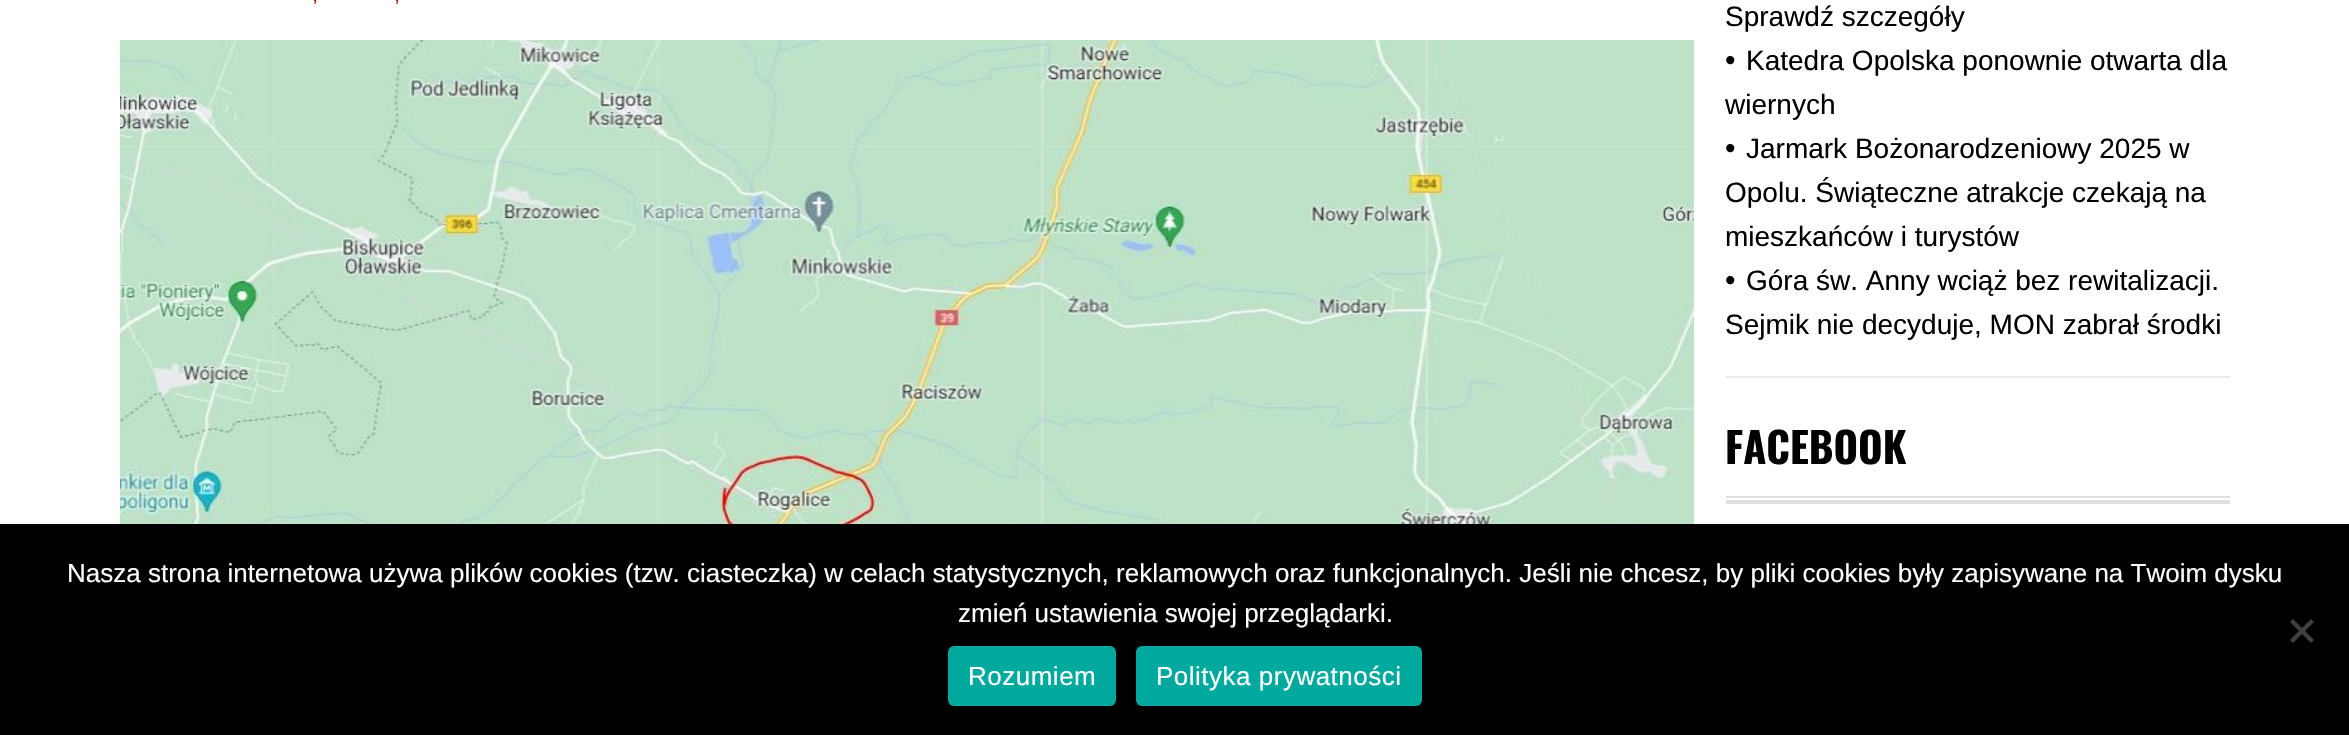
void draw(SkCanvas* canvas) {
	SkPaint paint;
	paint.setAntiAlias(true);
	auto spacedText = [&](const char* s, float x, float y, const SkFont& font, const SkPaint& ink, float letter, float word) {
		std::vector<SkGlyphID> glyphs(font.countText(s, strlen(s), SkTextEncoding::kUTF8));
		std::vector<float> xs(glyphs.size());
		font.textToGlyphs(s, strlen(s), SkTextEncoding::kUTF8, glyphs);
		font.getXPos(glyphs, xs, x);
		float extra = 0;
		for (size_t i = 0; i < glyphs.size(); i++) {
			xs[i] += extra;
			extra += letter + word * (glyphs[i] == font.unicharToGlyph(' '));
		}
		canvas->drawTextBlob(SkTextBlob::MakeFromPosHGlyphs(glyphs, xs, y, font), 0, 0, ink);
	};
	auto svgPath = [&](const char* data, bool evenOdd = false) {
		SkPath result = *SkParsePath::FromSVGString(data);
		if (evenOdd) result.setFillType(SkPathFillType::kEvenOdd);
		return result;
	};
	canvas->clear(0xffffffff);
	SkFont f1(fontMgr->matchFamilyStyle("Liberation Sans", SkFontStyle::Normal()), 22);
	f1.setSubpixel(true);
	paint.setColor(0xffb81915);
	canvas->drawString(",", 312, 1, f1, paint);
	canvas->drawString(",", 394, 1, f1, paint);
	canvas->drawImageRect(SkImages::DeferredFromEncodedData(SkData::MakeFromFileName("img1.png")), SkRect::MakeXYWH(120, 40, 1574, 484), SkSamplingOptions());
	paint.setColor(0xffeaeaea);
	canvas->drawRect(SkRect::MakeXYWH(1726, 376, 504, 2), paint);
	SkFont f2(fontMgr->matchFamilyStyle("Liberation Sans", SkFontStyle::Normal()), 28);
	f2.setSubpixel(true);
	paint.setColor(0xff000000);
	canvas->drawString("Sprawdź szczegóły", 1725, 26, f2, paint);
	SkFont f3(fontMgr->matchFamilyStyle("Liberation Sans", SkFontStyle::Normal()), 30);
	f3.setSubpixel(true);
	canvas->drawString("•", 1725, 70, f3, paint);
	canvas->drawString("Katedra Opolska ponownie otwarta dla", 1746, 70, f2, paint);
	canvas->drawString("wiernych", 1725, 114, f2, paint);
	canvas->drawString("•", 1725, 158, f3, paint);
	canvas->drawString("Jarmark Bożonarodzeniowy 2025 w", 1746, 158, f2, paint);
	canvas->drawString("Opolu. Świąteczne atrakcje czekają na", 1725, 202, f2, paint);
	canvas->drawString("mieszkańców i turystów", 1725, 246, f2, paint);
	canvas->drawString("•", 1725, 290, f3, paint);
	canvas->drawString("Góra św. Anny wciąż bez rewitalizacji.", 1746, 290, f2, paint);
	canvas->drawString("Sejmik nie decyduje, MON zabrał środki", 1725, 334, f2, paint);
	paint.setColor(0xffdfdfdf);
	canvas->drawRect(SkRect::MakeXYWH(1726, 496, 504, 2), paint);
	canvas->drawRect(SkRect::MakeXYWH(1726, 500, 504, 4), paint);
	SkFont f4(fontMgr->matchFamilyStyle("Oswald", SkFontStyle::Bold()), 42);
	f4.setSubpixel(true);
	paint.setColor(0xff000000);
	canvas->drawString("FACEBOOK", 1725, 464, f4, paint);
	canvas->drawRect(SkRect::MakeXYWH(0, 524, 2349, 211), paint);
	SkFont f5(fontMgr->matchFamilyStyle("Liberation Sans", SkFontStyle::Normal()), 26);
	f5.setSubpixel(true);
	paint.setColor(0xffffffff);
	canvas->drawString("Nasza strona internetowa używa plików cookies (tzw. ciasteczka) w celach statystycznych, reklamowych oraz funkcjonalnych. Jeśli nie chcesz, by pliki cookies były zapisywane na Twoim dysku", 67, 582, f5, paint);
	canvas->drawString("zmień ustawienia swojej przeglądarki.", 958, 622, f5, paint);
	paint.setColor(0xff404040);
	canvas->drawPath(svgPath("M2311 619L2314 622L2293 643L2290 640Z"), paint);
	canvas->drawPath(svgPath("M2290 622L2293 619L2314 640L2311 643Z"), paint);
	paint.setColor(0xff00a99d);
	canvas->drawRoundRect(SkRect::MakeXYWH(948, 646, 168, 60), 6, 6, paint);
	paint.setColor(0xffffffff);
	spacedText("Rozumiem", 968, 685, f5, paint, 0.5, 0);
	paint.setColor(0xff00a99d);
	canvas->drawRoundRect(SkRect::MakeXYWH(1136, 646, 286, 60), 6, 6, paint);
	paint.setColor(0xffffffff);
	spacedText("Polityka prywatności", 1156, 685, f5, paint, 0.5, 0);
}
